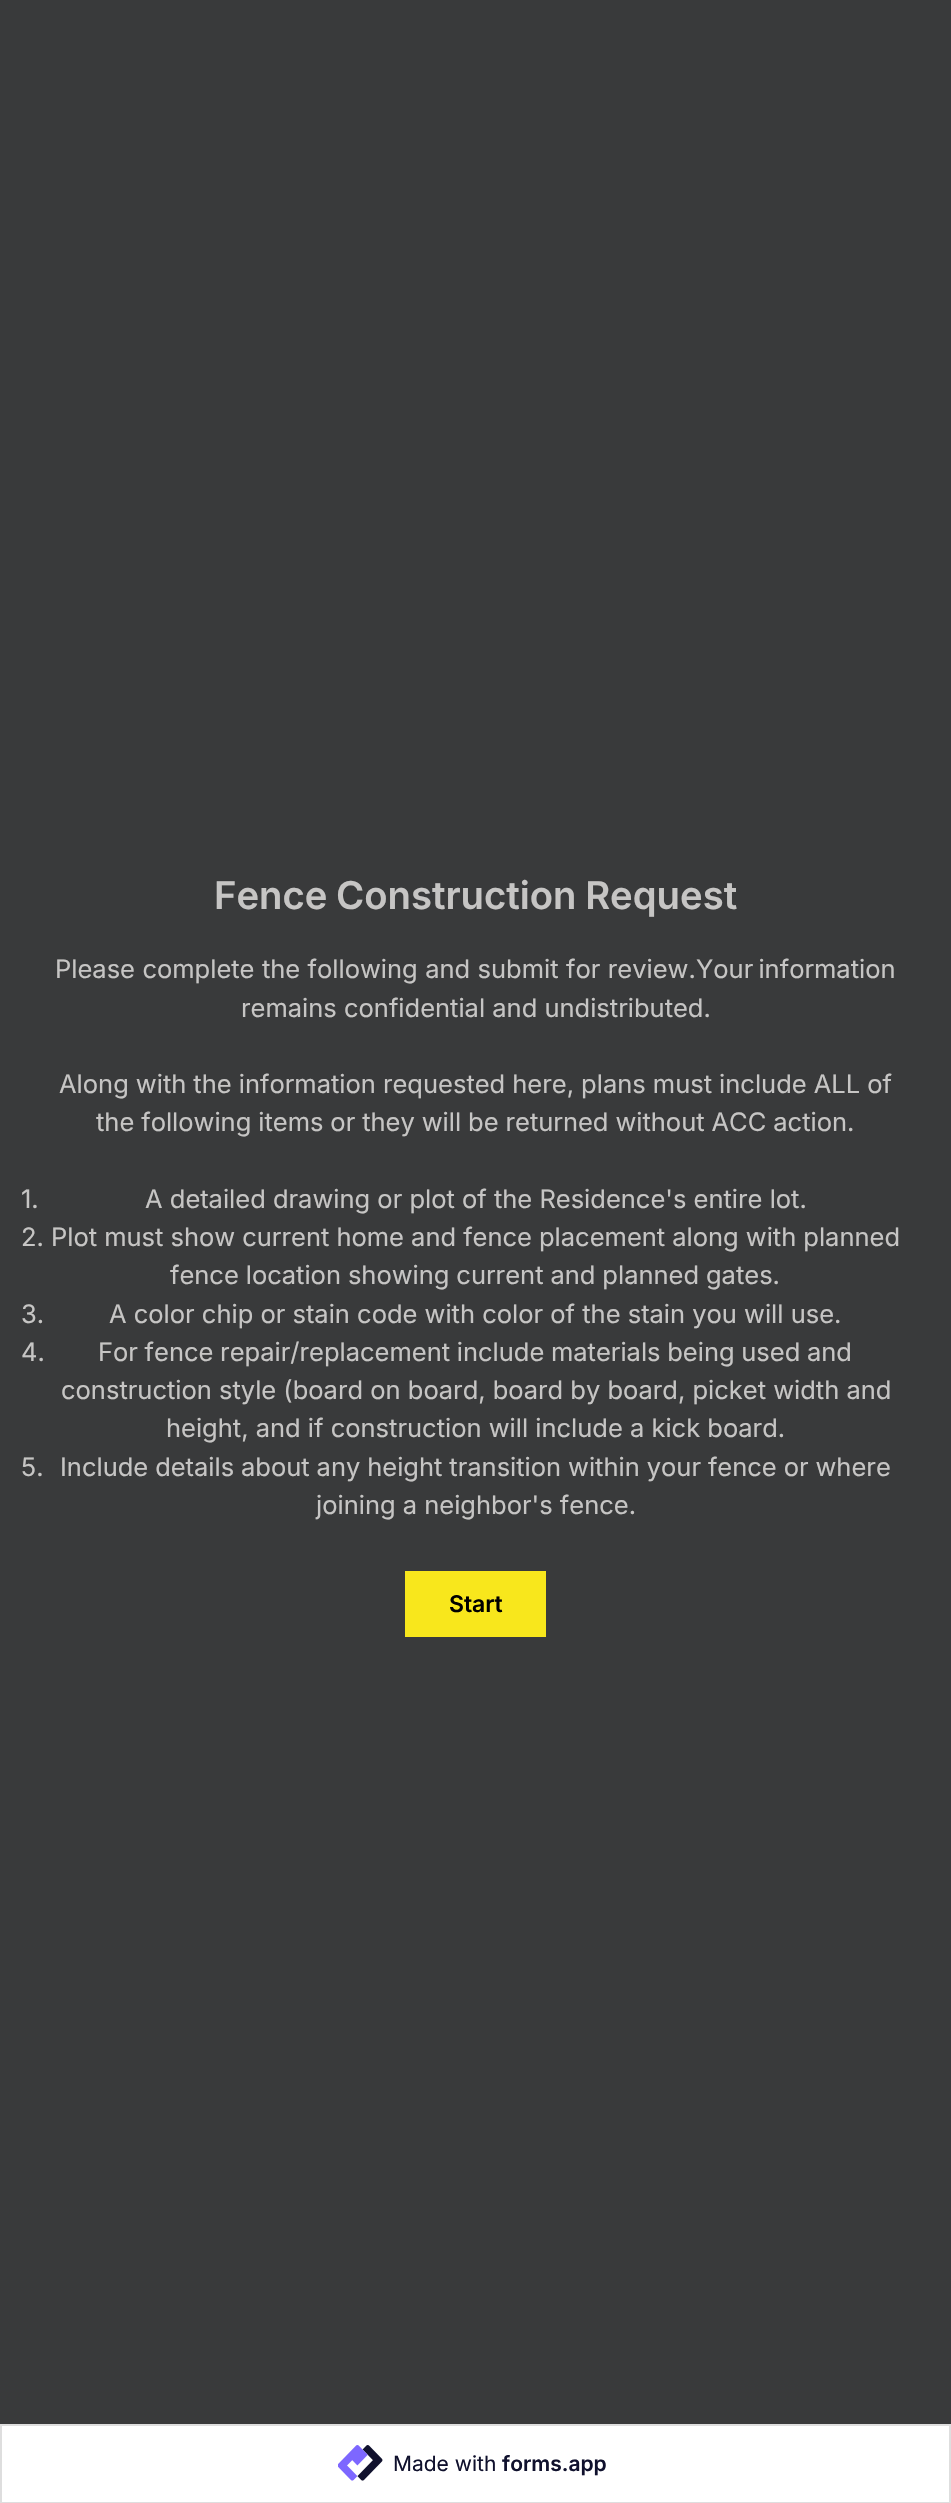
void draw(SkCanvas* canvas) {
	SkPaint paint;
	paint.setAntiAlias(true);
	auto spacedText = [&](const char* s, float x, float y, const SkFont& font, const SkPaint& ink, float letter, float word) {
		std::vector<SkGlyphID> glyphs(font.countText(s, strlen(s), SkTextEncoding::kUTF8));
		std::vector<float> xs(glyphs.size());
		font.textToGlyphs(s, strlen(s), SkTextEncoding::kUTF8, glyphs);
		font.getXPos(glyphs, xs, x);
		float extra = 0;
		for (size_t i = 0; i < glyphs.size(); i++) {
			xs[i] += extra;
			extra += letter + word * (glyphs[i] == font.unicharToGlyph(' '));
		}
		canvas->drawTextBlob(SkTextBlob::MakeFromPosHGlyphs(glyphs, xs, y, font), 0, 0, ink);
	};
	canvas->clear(0xff393a3b);
	SkFont f1(fontMgr->matchFamilyStyle("Inter", SkFontStyle(600, SkFontStyle::kNormal_Width, SkFontStyle::kUpright_Slant)), 38.25);
	f1.setSubpixel(true);
	paint.setColor(0xffc6c5c4);
	spacedText("Fence Construction Request", 214, 909, f1, paint, 0, -1);
	SkFont f2(fontMgr->matchFamilyStyle("Inter", SkFontStyle::Normal()), 25.5);
	f2.setSubpixel(true);
	spacedText("Please complete the following and submit for review.", 55, 978, f2, paint, 0, 0.25);
	spacedText("Your information", 696, 978, f2, paint, 0, -2);
	canvas->drawString("remains confidential and undistributed.", 241, 1017, f2, paint);
	spacedText("Along with the information requested here, plans must include ALL of", 59, 1093, f2, paint, 0, -0.1);
	spacedText("the following items or they will be returned without ACC action.", 96, 1131, f2, paint, 0, -0.25);
	canvas->drawString("1.", 21, 1208, f2, paint);
	canvas->drawString("A detailed drawing or plot of the Residence's entire lot.", 145, 1208, f2, paint);
	canvas->drawString("2.", 21, 1246, f2, paint);
	spacedText("Plot must show current home and fence placement along with planned", 51, 1246, f2, paint, 0, -0.1);
	spacedText("fence location showing current and planned gates.", 170, 1284, f2, paint, 0, -0.25);
	canvas->drawString("3.", 21, 1323, f2, paint);
	canvas->drawString("A color chip or stain code with color of the stain you will use.", 109, 1323, f2, paint);
	canvas->drawString("4.", 21, 1361, f2, paint);
	spacedText("For fence repair/replacement include materials being used and", 98, 1361, f2, paint, 0, -0.5);
	canvas->drawString("construction style (board on board, board by board, picket width and", 61, 1399, f2, paint);
	canvas->drawString("height, and if construction will include a kick board.", 166, 1437, f2, paint);
	canvas->drawString("5.", 21, 1476, f2, paint);
	spacedText("Include details about any height transition within your fence or where", 60, 1476, f2, paint, 0, -0.25);
	canvas->drawString("joining a neighbor's fence.", 316, 1514, f2, paint);
	paint.setColor(0xfff8e71c);
	canvas->drawRect(SkRect::MakeXYWH(405, 1571, 141, 66), paint);
	SkFont f3(fontMgr->matchFamilyStyle("Inter", SkFontStyle(600, SkFontStyle::kNormal_Width, SkFontStyle::kUpright_Slant)), 23);
	f3.setSubpixel(true);
	paint.setColor(0xff000000);
	canvas->drawString("Start", 449, 1612, f3, paint);
	paint.setColor(0xffffffff);
	canvas->drawRect(SkRect::MakeXYWH(1, 2425, 949, 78), paint);
	paint.setStroke(true);
	paint.setStrokeWidth(2);
	paint.setColor(0xffdedede);
	canvas->drawRect(SkRect::MakeXYWH(1, 2425, 949, 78), paint);
	canvas->drawImageRect(SkImages::DeferredFromEncodedData(SkData::MakeFromFileName("img1.png")), SkRect::MakeXYWH(338, 2445, 45, 36), SkSamplingOptions());
	SkFont f4(fontMgr->matchFamilyStyle("Inter", SkFontStyle::Normal()), 21);
	f4.setSubpixel(true);
	paint.setStroke(false);
	paint.setColor(0xff10112d);
	canvas->drawString("Made with", 393, 2471, f4, paint);
	SkFont f5(fontMgr->matchFamilyStyle("Inter", SkFontStyle(600, SkFontStyle::kNormal_Width, SkFontStyle::kUpright_Slant)), 21);
	f5.setSubpixel(true);
	canvas->drawString("forms.app", 502, 2471, f5, paint);
}
